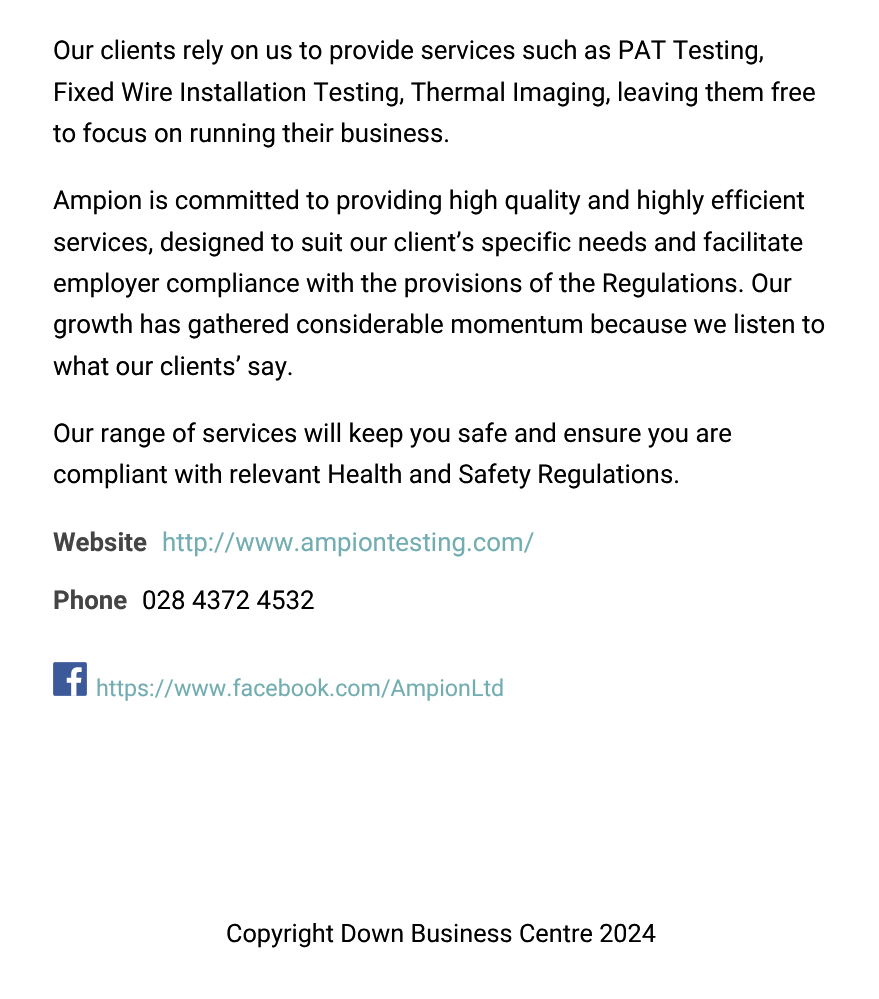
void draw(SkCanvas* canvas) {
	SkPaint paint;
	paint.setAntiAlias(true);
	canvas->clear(0xffffffff);
	SkFont f1(fontMgr->matchFamilyStyle("Roboto", SkFontStyle::Normal()), 25.85);
	f1.setSubpixel(true);
	paint.setColor(0xff000000);
	canvas->drawString("Our clients rely on us to provide services such as PAT Testing,", 53, 59, f1, paint);
	canvas->drawString("Fixed Wire Installation Testing, Thermal Imaging, leaving them free", 53, 101, f1, paint);
	canvas->drawString("to focus on running their business.", 53, 142, f1, paint);
	canvas->drawString("Ampion is committed to providing high quality and highly efficient", 53, 209, f1, paint);
	canvas->drawString("services, designed to suit our client’s specific needs and facilitate", 53, 251, f1, paint);
	canvas->drawString("employer compliance with the provisions of the Regulations. Our", 53, 292, f1, paint);
	canvas->drawString("growth has gathered considerable momentum because we listen to", 53, 333, f1, paint);
	canvas->drawString("what our clients’ say.", 53, 375, f1, paint);
	canvas->drawString("Our range of services will keep you safe and ensure you are", 53, 442, f1, paint);
	canvas->drawString("compliant with relevant Health and Safety Regulations.", 53, 483, f1, paint);
	SkFont f2(fontMgr->matchFamilyStyle("Roboto", SkFontStyle::Bold()), 25.85);
	f2.setSubpixel(true);
	paint.setColor(0xff444444);
	canvas->drawString("Website", 53, 551, f2, paint);
	paint.setColor(0xff72adb1);
	canvas->drawString("http://www.ampiontesting.com/", 162, 551, f1, paint);
	paint.setColor(0xff444444);
	canvas->drawString("Phone", 53, 609, f2, paint);
	paint.setColor(0xff000000);
	canvas->drawString("028 4372 4532", 142, 609, f1, paint);
	canvas->drawImageRect(SkImages::DeferredFromEncodedData(SkData::MakeFromFileName("img1.png")), SkRect::MakeXYWH(53, 662, 34, 34), SkSamplingOptions());
	SkFont f3(fontMgr->matchFamilyStyle("Roboto", SkFontStyle::Normal()), 23.25);
	f3.setSubpixel(true);
	paint.setColor(0xff72adb1);
	canvas->drawString("https://www.facebook.com/AmpionLtd", 96, 696, f3, paint);
	SkFont f4(fontMgr->matchFamilyStyle("Roboto", SkFontStyle::Normal()), 25.25);
	f4.setSubpixel(true);
	paint.setColor(0xff000000);
	canvas->drawString("Copyright Down Business Centre 2024", 226, 942, f4, paint);
}
